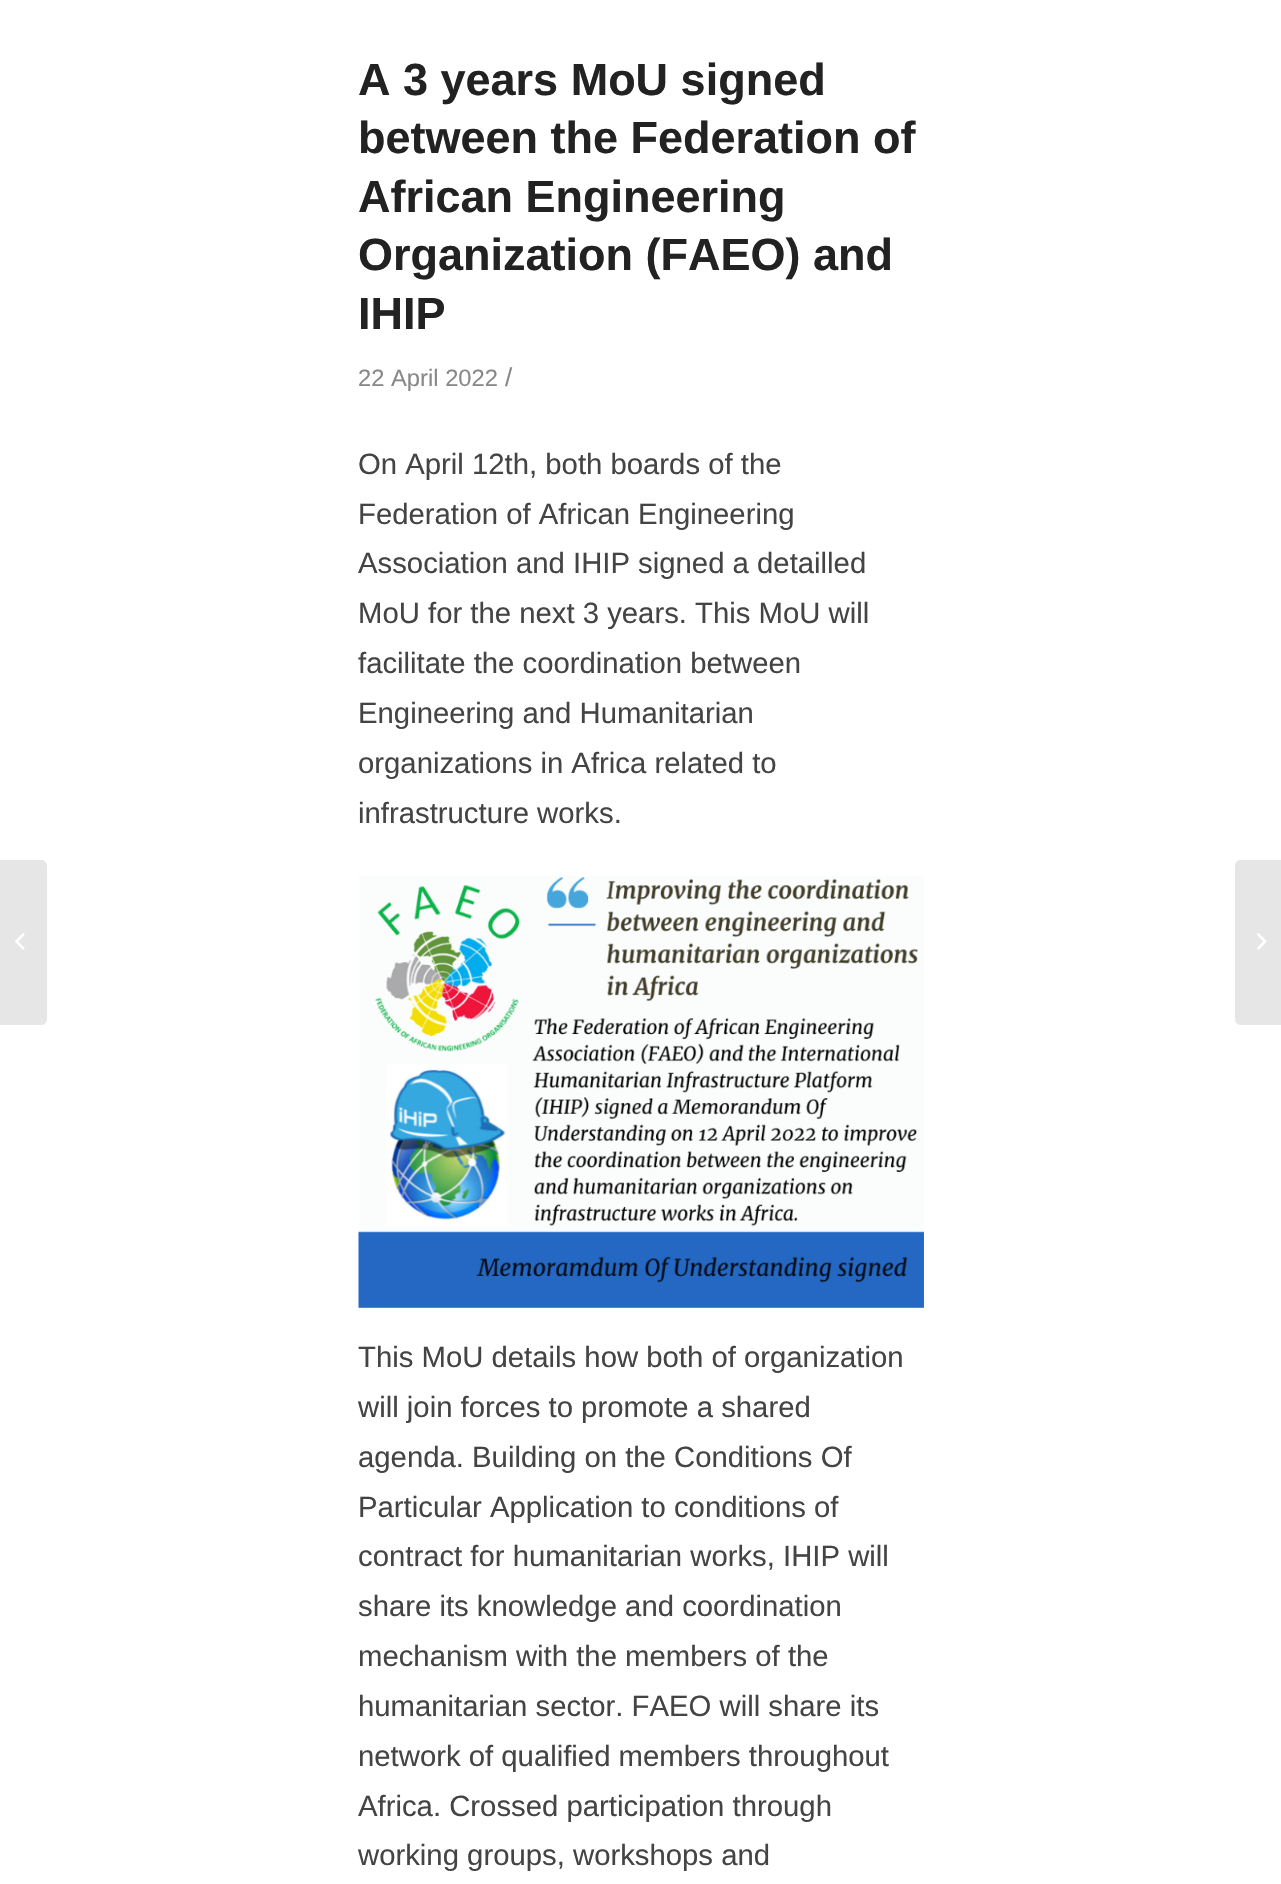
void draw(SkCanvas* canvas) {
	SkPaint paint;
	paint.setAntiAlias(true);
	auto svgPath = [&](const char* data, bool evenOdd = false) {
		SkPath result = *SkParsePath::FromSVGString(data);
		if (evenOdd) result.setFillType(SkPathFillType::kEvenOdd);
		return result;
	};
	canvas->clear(0xffffffff);
	paint.setColor(0xffe6e6e6);
	canvas->drawPath(svgPath("M0 860H41C44.5 860 47 862.5 47 866V1019C47 1022.5 44.5 1025 41 1025H0Z"), paint);
	canvas->drawImageRect(SkImages::DeferredFromEncodedData(SkData::MakeFromFileName("img1.png")), SkRect::MakeXYWH(15, 933, 10, 17), SkSamplingOptions());
	SkFont f1(fontMgr->matchFamilyStyle("Liberation Sans", SkFontStyle::Bold()), 45);
	f1.setSubpixel(true);
	paint.setColor(0xff222222);
	canvas->drawString("A 3 years MoU signed", 358, 95, f1, paint);
	canvas->drawString("between the Federation of", 358, 153, f1, paint);
	canvas->drawString("African Engineering", 358, 212, f1, paint);
	canvas->drawString("Organization (FAEO) and", 358, 270, f1, paint);
	canvas->drawString("IHIP", 358, 329, f1, paint);
	SkFont f2(fontMgr->matchFamilyStyle("Liberation Sans", SkFontStyle::Normal()), 23.75);
	f2.setSubpixel(true);
	paint.setColor(0xff888888);
	canvas->drawString("22 April 2022", 358, 386, f2, paint);
	SkFont f3(fontMgr->matchFamilyStyle("Liberation Sans", SkFontStyle::Normal()), 26);
	f3.setSubpixel(true);
	canvas->drawString("/", 505, 386, f3, paint);
	SkFont f4(fontMgr->matchFamilyStyle("Liberation Sans", SkFontStyle::Normal()), 29.3);
	f4.setSubpixel(true);
	paint.setColor(0xff444444);
	canvas->drawString("On April 12th, both boards of the", 358, 474, f4, paint);
	canvas->drawString("Federation of African Engineering", 358, 524, f4, paint);
	canvas->drawString("Association and IHIP signed a detailled", 358, 573, f4, paint);
	canvas->drawString("MoU for the next 3 years. This MoU will", 358, 623, f4, paint);
	canvas->drawString("facilitate the coordination between", 358, 673, f4, paint);
	canvas->drawString("Engineering and Humanitarian", 358, 723, f4, paint);
	canvas->drawString("organizations in Africa related to", 358, 773, f4, paint);
	canvas->drawString("infrastructure works.", 358, 823, f4, paint);
	canvas->drawImageRect(SkImages::DeferredFromEncodedData(SkData::MakeFromFileName("img2.png")), SkRect::MakeXYWH(358, 876, 566, 432), SkSamplingOptions());
	canvas->drawString("This MoU details how both of organization", 358, 1367, f4, paint);
	canvas->drawString("will join forces to promote a shared", 358, 1417, f4, paint);
	canvas->drawString("agenda. Building on the Conditions Of", 358, 1467, f4, paint);
	canvas->drawString("Particular Application to conditions of", 358, 1517, f4, paint);
	canvas->drawString("contract for humanitarian works, IHIP will", 358, 1566, f4, paint);
	canvas->drawString("share its knowledge and coordination", 358, 1616, f4, paint);
	canvas->drawString("mechanism with the members of the", 358, 1666, f4, paint);
	canvas->drawString("humanitarian sector. FAEO will share its", 358, 1716, f4, paint);
	canvas->drawString("network of qualified members throughout", 358, 1766, f4, paint);
	canvas->drawString("Africa. Crossed participation through", 358, 1816, f4, paint);
	canvas->drawString("working groups, workshops and", 358, 1865, f4, paint);
	paint.setColor(0xffe6e6e6);
	canvas->drawPath(svgPath("M1241 860H1281V1025H1241C1237.5 1025 1235 1022.5 1235 1019V866C1235 862.5 1237.5 860 1241 860Z"), paint);
	canvas->drawImageRect(SkImages::DeferredFromEncodedData(SkData::MakeFromFileName("img3.png")), SkRect::MakeXYWH(1257, 933, 10, 17), SkSamplingOptions());
}
